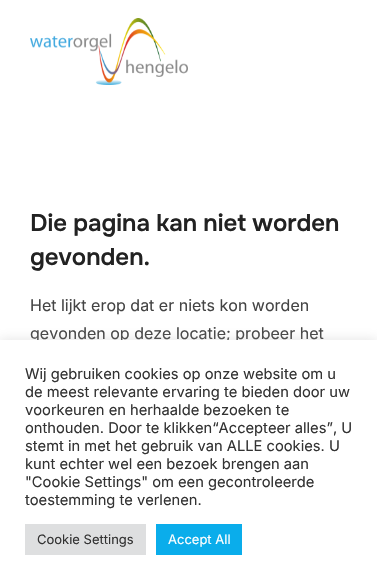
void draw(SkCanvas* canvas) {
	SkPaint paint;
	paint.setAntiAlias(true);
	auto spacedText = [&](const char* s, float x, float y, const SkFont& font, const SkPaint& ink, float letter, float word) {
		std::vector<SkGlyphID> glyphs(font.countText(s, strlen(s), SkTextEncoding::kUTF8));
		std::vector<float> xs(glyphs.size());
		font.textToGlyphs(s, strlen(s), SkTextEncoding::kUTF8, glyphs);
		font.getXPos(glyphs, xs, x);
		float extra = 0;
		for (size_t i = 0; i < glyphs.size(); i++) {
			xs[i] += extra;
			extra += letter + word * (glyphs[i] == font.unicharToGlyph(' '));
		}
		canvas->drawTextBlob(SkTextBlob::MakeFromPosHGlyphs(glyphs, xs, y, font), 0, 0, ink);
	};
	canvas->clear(0xffffffff);
	canvas->drawImageRect(SkImages::DeferredFromEncodedData(SkData::MakeFromFileName("img1.png")), SkRect::MakeXYWH(30, 18, 158, 67), SkSamplingOptions());
	SkFont f1(fontMgr->matchFamilyStyle("Onest", SkFontStyle(600, SkFontStyle::kNormal_Width, SkFontStyle::kUpright_Slant)), 24);
	f1.setSubpixel(true);
	paint.setColor(0xff222222);
	spacedText("Die pagina kan niet worden", 30, 231, f1, paint, 0, -0.5);
	canvas->drawString("gevonden.", 30, 265, f1, paint);
	SkFont f2(fontMgr->matchFamilyStyle("Inter", SkFontStyle::Normal()), 16);
	f2.setSubpixel(true);
	paint.setColor(0xff444444);
	canvas->drawString("Het lijkt erop dat er niets kon worden", 30, 311, f2, paint);
	canvas->drawString("gevonden op deze locatie; probeer het", 30, 339, f2, paint);
	paint.setColor(0x4dacabab);
	paint.setMaskFilter(SkMaskFilter::MakeBlur(kNormal_SkBlurStyle, 5));
	canvas->drawRect(SkRect::MakeXYWH(0, 339, 377, 245), paint);
	paint.setMaskFilter(nullptr);
	paint.setColor(0xffffffff);
	canvas->drawRect(SkRect::MakeXYWH(0, 340, 377, 245), paint);
	SkFont f3(fontMgr->matchFamilyStyle("Inter", SkFontStyle::Normal()), 14.7);
	f3.setSubpixel(true);
	paint.setColor(0xff333333);
	canvas->drawString("Wij gebruiken cookies op onze website om u", 25, 379, f3, paint);
	canvas->drawString("de meest relevante ervaring te bieden door uw", 25, 397, f3, paint);
	canvas->drawString("voorkeuren en herhaalde bezoeken te", 25, 415, f3, paint);
	canvas->drawString("onthouden. Door te klikken“Accepteer alles”, U", 25, 433, f3, paint);
	canvas->drawString("stemt in met het gebruik van ALLE cookies. U", 25, 451, f3, paint);
	canvas->drawString("kunt echter wel een bezoek brengen aan", 25, 469, f3, paint);
	canvas->drawString("\"Cookie Settings\" om een gecontroleerde", 25, 487, f3, paint);
	canvas->drawString("toestemming te verlenen.", 25, 505, f3, paint);
	paint.setColor(0xffdedfe0);
	canvas->drawRect(SkRect::MakeXYWH(25, 524, 121, 31), paint);
	SkFont f4(fontMgr->matchFamilyStyle("Inter", SkFontStyle::Normal()), 13);
	f4.setSubpixel(true);
	paint.setColor(0xff333333);
	canvas->drawString("Cookie Settings", 37, 544, f4, paint);
	paint.setColor(0xff0aadeb);
	canvas->drawRect(SkRect::MakeXYWH(156, 524, 86, 31), paint);
	paint.setColor(0xffffffff);
	canvas->drawString("Accept All", 168, 544, f4, paint);
}
